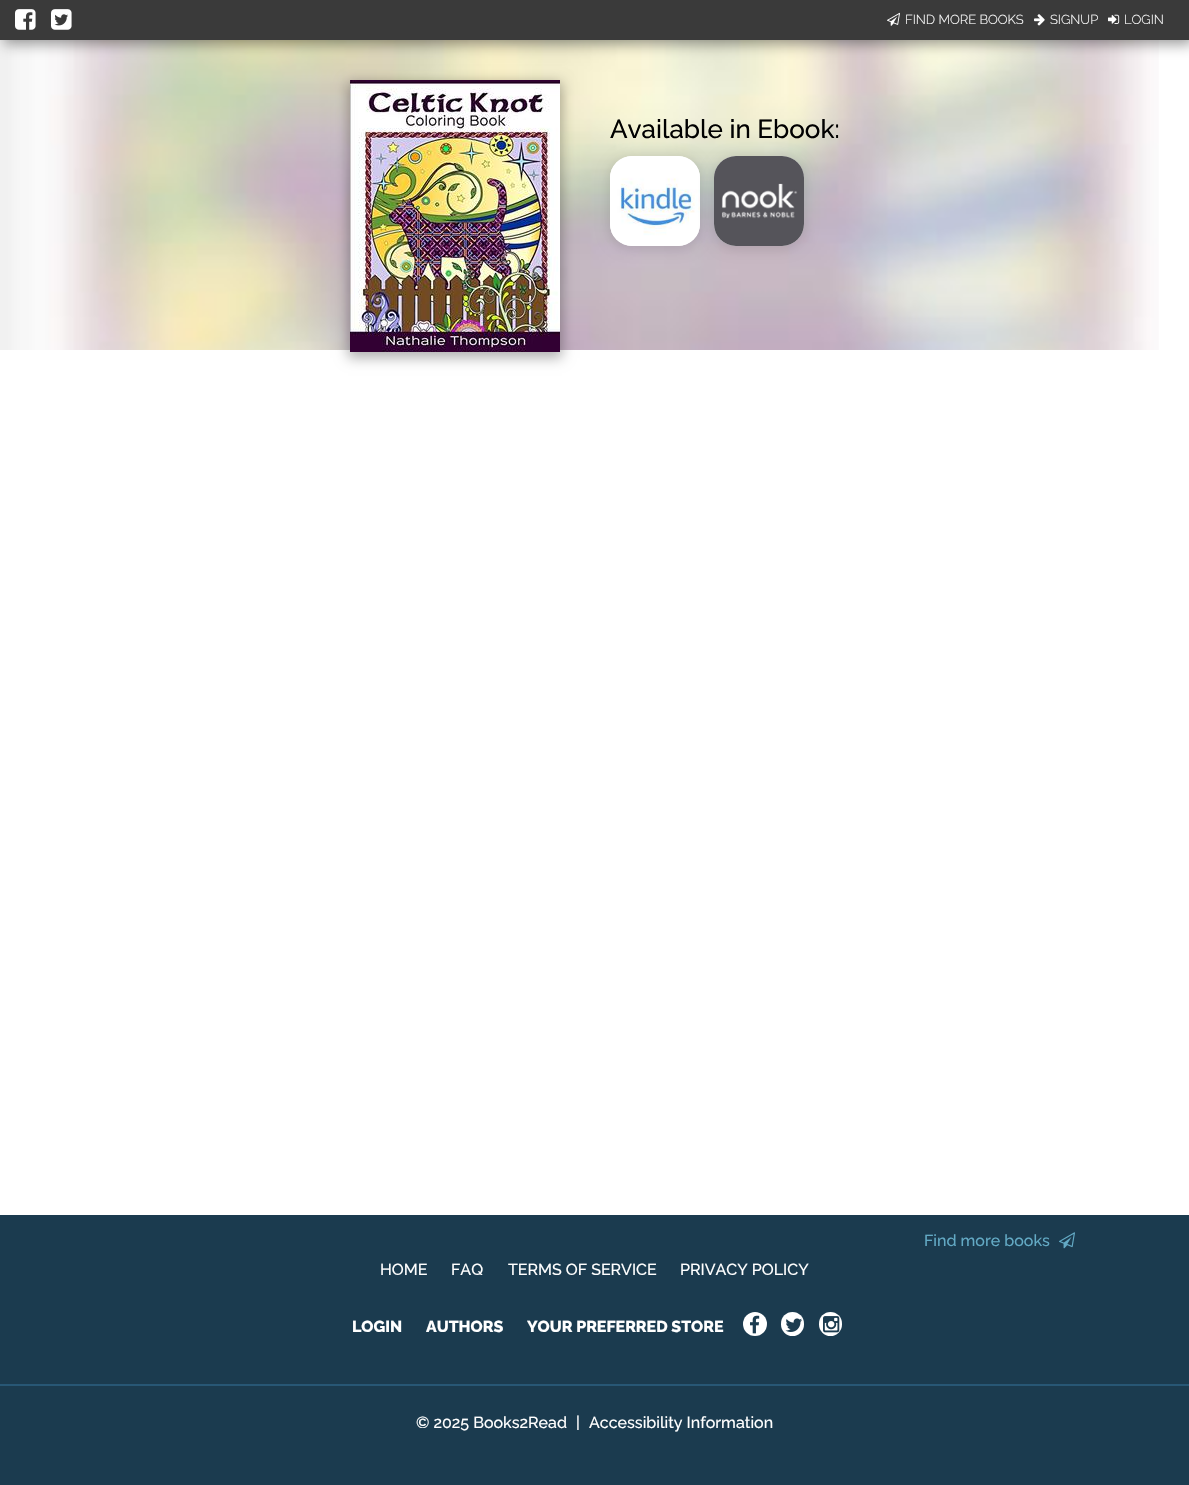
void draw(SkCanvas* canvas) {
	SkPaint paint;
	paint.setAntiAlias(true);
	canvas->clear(0xffffffff);
	canvas->drawImageRect(SkImages::DeferredFromEncodedData(SkData::MakeFromFileName("img1.png")), SkRect::MakeXYWH(0, 40, 1159, 310), SkSamplingOptions());
	paint.setColor(0x66000000);
	paint.setMaskFilter(SkMaskFilter::MakeBlur(kNormal_SkBlurStyle, 7));
	canvas->drawRect(SkRect::MakeXYWH(4, 4, 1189, 40), paint);
	paint.setMaskFilter(nullptr);
	paint.setColor(0xff3a3a3a);
	canvas->drawRect(SkRect::MakeXYWH(0, 0, 1189, 40), paint);
	canvas->drawImageRect(SkImages::DeferredFromEncodedData(SkData::MakeFromFileName("img2.png")), SkRect::MakeXYWH(15, 9, 21, 21), SkSamplingOptions());
	canvas->drawImageRect(SkImages::DeferredFromEncodedData(SkData::MakeFromFileName("img3.png")), SkRect::MakeXYWH(51, 9, 21, 21), SkSamplingOptions());
	canvas->drawImageRect(SkImages::DeferredFromEncodedData(SkData::MakeFromFileName("img4.png")), SkRect::MakeXYWH(887, 12, 13, 14), SkSamplingOptions());
	SkFont f1(fontMgr->matchFamilyStyle("Raleway", SkFontStyle(300, SkFontStyle::kNormal_Width, SkFontStyle::kUpright_Slant)), 13);
	f1.setSubpixel(true);
	paint.setColor(0xffffffff);
	canvas->drawString("FIND MORE BOOKS", 905, 24, f1, paint);
	canvas->drawImageRect(SkImages::DeferredFromEncodedData(SkData::MakeFromFileName("img5.png")), SkRect::MakeXYWH(1034, 14, 11, 12), SkSamplingOptions());
	canvas->drawString("SIGNUP", 1050, 24, f1, paint);
	canvas->drawImageRect(SkImages::DeferredFromEncodedData(SkData::MakeFromFileName("img6.png")), SkRect::MakeXYWH(1108, 14, 12, 10), SkSamplingOptions());
	canvas->drawString("LOGIN", 1124, 24, f1, paint);
	paint.setColor(0x4d000000);
	paint.setMaskFilter(SkMaskFilter::MakeBlur(kNormal_SkBlurStyle, 6));
	canvas->drawRect(SkRect::MakeXYWH(348, 82, 214, 276), paint);
	paint.setMaskFilter(nullptr);
	canvas->drawImageRect(SkImages::DeferredFromEncodedData(SkData::MakeFromFileName("img7.png")), SkRect::MakeXYWH(350, 80, 210, 272), SkSamplingOptions());
	paint.setColor(0x1a000000);
	paint.setMaskFilter(SkMaskFilter::MakeBlur(kNormal_SkBlurStyle, 6));
	canvas->drawRoundRect(SkRect::MakeXYWH(608, 156, 94, 94), 24, 24, paint);
	paint.setMaskFilter(nullptr);
	paint.setColor(0xffffffff);
	canvas->drawRoundRect(SkRect::MakeXYWH(610, 156, 90, 90), 22, 22, paint);
	canvas->drawImageRect(SkImages::DeferredFromEncodedData(SkData::MakeFromFileName("img8.png")), SkRect::MakeXYWH(610, 156, 90, 90), SkSamplingOptions());
	paint.setColor(0x1a000000);
	paint.setMaskFilter(SkMaskFilter::MakeBlur(kNormal_SkBlurStyle, 6));
	canvas->drawRoundRect(SkRect::MakeXYWH(712, 156, 94, 94), 24, 24, paint);
	paint.setMaskFilter(nullptr);
	SkFont f2(fontMgr->matchFamilyStyle("Raleway", SkFontStyle(500, SkFontStyle::kNormal_Width, SkFontStyle::kUpright_Slant)), 26);
	f2.setSubpixel(true);
	paint.setColor(0xff000000);
	canvas->drawString("Available in Ebook:", 610, 138, f2, paint);
	paint.setColor(0xffffffff);
	canvas->drawRoundRect(SkRect::MakeXYWH(714, 156, 90, 90), 22, 22, paint);
	canvas->drawImageRect(SkImages::DeferredFromEncodedData(SkData::MakeFromFileName("img9.png")), SkRect::MakeXYWH(714, 156, 90, 90), SkSamplingOptions());
	paint.setColor(0xff1b3b4f);
	canvas->drawRect(SkRect::MakeXYWH(0, 1215, 1189, 270), paint);
	SkFont f3(fontMgr->matchFamilyStyle("Raleway", SkFontStyle(500, SkFontStyle::kNormal_Width, SkFontStyle::kUpright_Slant)), 16);
	f3.setSubpixel(true);
	paint.setColor(0xff63aac5);
	canvas->drawString("Find more books", 924, 1246, f3, paint);
	canvas->drawImageRect(SkImages::DeferredFromEncodedData(SkData::MakeFromFileName("img10.png")), SkRect::MakeXYWH(1059, 1232, 16, 17), SkSamplingOptions());
	paint.setColor(0xffffffff);
	canvas->drawString("HOME", 380, 1275, f3, paint);
	canvas->drawString("FAQ", 451, 1275, f3, paint);
	canvas->drawString("TERMS OF SERVICE", 508, 1275, f3, paint);
	canvas->drawString("PRIVACY POLICY", 680, 1275, f3, paint);
	SkFont f4(fontMgr->matchFamilyStyle("Raleway", SkFontStyle(800, SkFontStyle::kNormal_Width, SkFontStyle::kUpright_Slant)), 16);
	f4.setSubpixel(true);
	canvas->drawString("LOGIN", 352, 1332, f4, paint);
	canvas->drawString("AUTHORS", 426, 1332, f4, paint);
	canvas->drawString("YOUR PREFERRED STORE", 527, 1332, f4, paint);
	canvas->drawCircle(755, 1324, 12, paint);
	canvas->drawImageRect(SkImages::DeferredFromEncodedData(SkData::MakeFromFileName("img11.png")), SkRect::MakeXYWH(750, 1315, 10, 19), SkSamplingOptions());
	canvas->drawRoundRect(SkRect::MakeXYWH(781, 1312, 23, 24), 11.5, 11.5, paint);
	canvas->drawImageRect(SkImages::DeferredFromEncodedData(SkData::MakeFromFileName("img12.png")), SkRect::MakeXYWH(785, 1318, 17, 14), SkSamplingOptions());
	canvas->drawRoundRect(SkRect::MakeXYWH(819, 1312, 23, 24), 11.5, 11.5, paint);
	canvas->drawImageRect(SkImages::DeferredFromEncodedData(SkData::MakeFromFileName("img13.png")), SkRect::MakeXYWH(823, 1316, 17, 17), SkSamplingOptions());
	paint.setColor(0xff285775);
	canvas->drawRect(SkRect::MakeXYWH(0, 1384, 1189, 2), paint);
	paint.setColor(0xffffffff);
	canvas->drawString("© 2025 Books2Read", 416, 1428, f3, paint);
	canvas->drawString("|", 576, 1428, f3, paint);
	canvas->drawString("Accessibility Information", 589, 1428, f3, paint);
}
